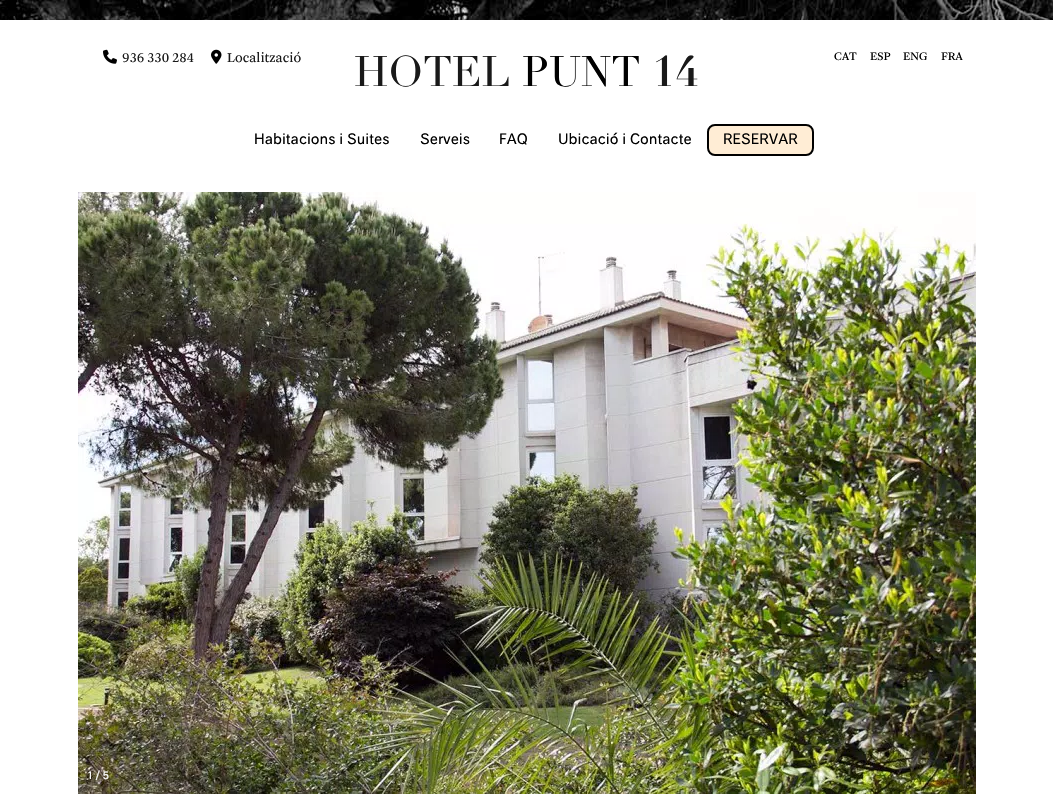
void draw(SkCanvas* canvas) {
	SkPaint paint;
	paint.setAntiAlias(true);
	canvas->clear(0xffffffff);
	canvas->drawImageRect(SkImages::DeferredFromEncodedData(SkData::MakeFromFileName("img1.png")), SkRect::MakeXYWH(0, 0, 1053, 20), SkSamplingOptions());
	canvas->drawImageRect(SkImages::DeferredFromEncodedData(SkData::MakeFromFileName("img2.png")), SkRect::MakeXYWH(103, 49, 14, 15), SkSamplingOptions());
	SkFont f1(fontMgr->matchFamilyStyle("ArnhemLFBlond", SkFontStyle::Normal()), 14);
	f1.setSubpixel(true);
	paint.setColor(0xff191919);
	canvas->drawString("936 330 284", 122, 62, f1, paint);
	canvas->drawImageRect(SkImages::DeferredFromEncodedData(SkData::MakeFromFileName("img3.png")), SkRect::MakeXYWH(211, 49, 11, 15), SkSamplingOptions());
	canvas->drawString("Localització", 227, 62, f1, paint);
	SkFont f2(fontMgr->matchFamilyStyle("ArnhemLFBlond", SkFontStyle::Normal()), 12);
	f2.setSubpixel(true);
	paint.setColor(0xff000000);
	canvas->drawString("CAT", 834, 60, f2, paint);
	canvas->drawString("ESP", 870, 60, f2, paint);
	canvas->drawString("ENG", 903, 60, f2, paint);
	canvas->drawString("FRA", 941, 60, f2, paint);
	SkFont f3(fontMgr->matchFamilyStyle("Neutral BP", SkFontStyle::Normal()), 14);
	f3.setSubpixel(true);
	canvas->drawString("Habitacions i Suites", 254, 144, f3, paint);
	canvas->drawString("Serveis", 420, 144, f3, paint);
	canvas->drawString("FAQ", 499, 144, f3, paint);
	canvas->drawString("Ubicació i Contacte", 558, 144, f3, paint);
	paint.setColor(0xffffedd5);
	canvas->drawRoundRect(SkRect::MakeXYWH(708, 125, 105, 30), 7, 7, paint);
	paint.setStroke(true);
	paint.setStrokeWidth(2);
	paint.setColor(0xff000000);
	canvas->drawRoundRect(SkRect::MakeXYWH(708, 125, 105, 30), 7, 7, paint);
	paint.setStroke(false);
	canvas->drawString("RESERVAR", 723, 144, f3, paint);
	SkFont f4(fontMgr->matchFamilyStyle("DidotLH", SkFontStyle::Normal()), 42);
	f4.setSubpixel(true);
	paint.setColor(0xff191919);
	canvas->drawString("HOTEL", 354, 86, f4, paint);
	paint.setColor(0xff000000);
	canvas->drawString("PUNT", 522, 86, f4, paint);
	SkFont f5(fontMgr->matchFamilyStyle("DidotLH", SkFontStyle::Bold()), 42);
	f5.setSubpixel(true);
	paint.setColor(0xff191919);
	canvas->drawString("14", 652, 86, f5, paint);
	canvas->drawImageRect(SkImages::DeferredFromEncodedData(SkData::MakeFromFileName("img4.png")), SkRect::MakeXYWH(78, 192, 898, 602), SkSamplingOptions());
	SkFont f6(fontMgr->matchFamilyStyle("Neutral BP", SkFontStyle::Normal()), 11);
	f6.setSubpixel(true);
	paint.setColor(0xffffffff);
	canvas->drawString("1 / 5", 88, 779, f6, paint);
}
